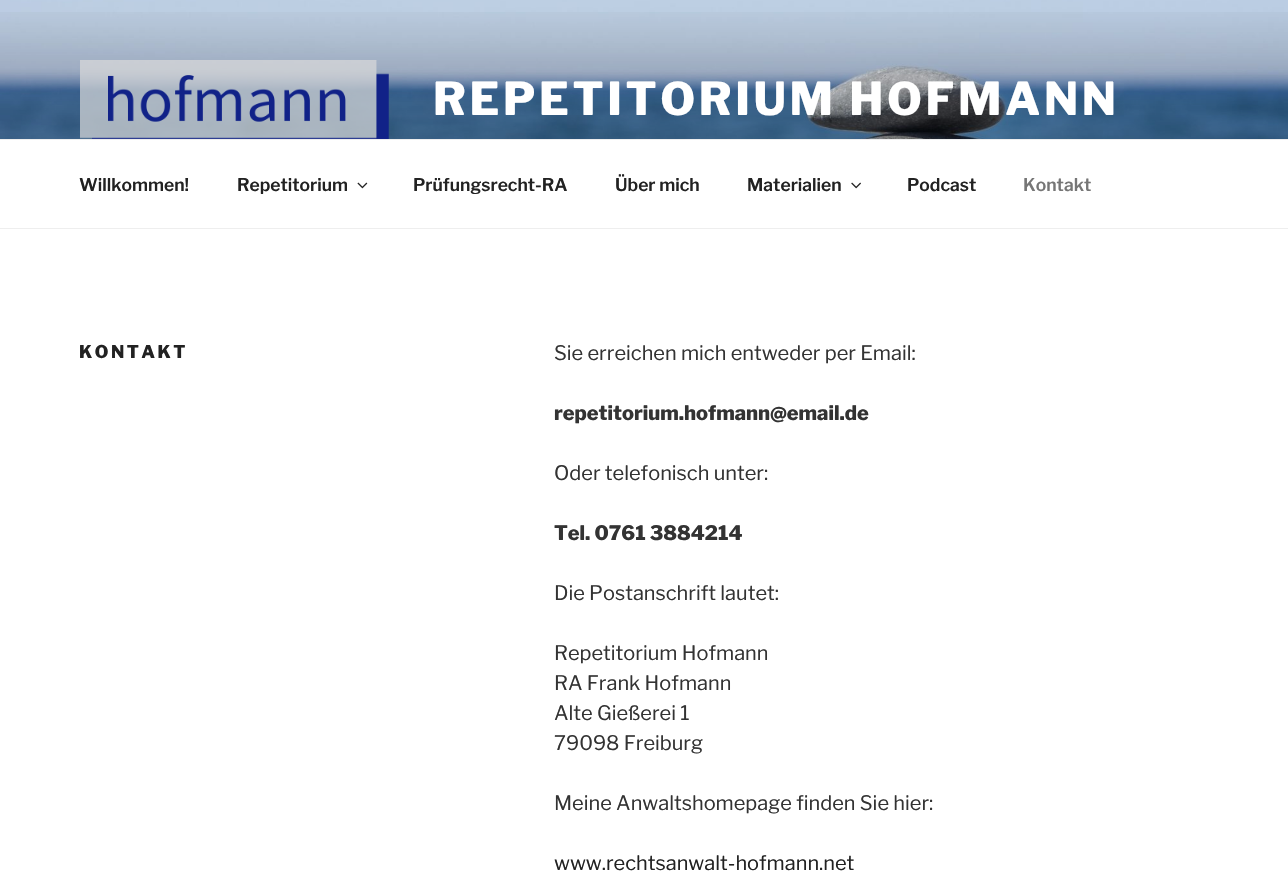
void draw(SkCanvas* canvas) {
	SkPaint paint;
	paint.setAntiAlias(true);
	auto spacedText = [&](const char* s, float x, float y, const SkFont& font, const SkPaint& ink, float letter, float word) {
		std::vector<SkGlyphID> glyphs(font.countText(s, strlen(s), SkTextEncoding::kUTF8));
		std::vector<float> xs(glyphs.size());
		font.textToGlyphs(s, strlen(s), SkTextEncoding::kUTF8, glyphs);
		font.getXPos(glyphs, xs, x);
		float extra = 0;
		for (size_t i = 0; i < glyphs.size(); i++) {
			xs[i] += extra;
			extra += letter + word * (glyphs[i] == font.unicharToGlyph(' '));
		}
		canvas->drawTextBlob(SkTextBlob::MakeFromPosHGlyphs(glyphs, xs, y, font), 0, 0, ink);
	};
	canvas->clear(0xffffffff);
	canvas->drawImageRect(SkImages::DeferredFromEncodedData(SkData::MakeFromFileName("img1.png")), SkRect::MakeXYWH(0, 0, 1288, 139), SkSamplingOptions());
	{
		const SkColor colors[] = {0x00000000, 0x4d000000, 0x4d000000};
		const float stops[] = {0, 0.75, 1};
		const SkPoint ends[] = {{644, 0}, {644, 229}};
		paint.setShader(SkGradientShader::MakeLinear(ends, colors, stops, 3, SkTileMode::kClamp));
		paint.setAlpha(255);
	}
	canvas->drawRect(SkRect::MakeXYWH(0, 12, 1288, 127), paint);
	canvas->drawImageRect(SkImages::DeferredFromEncodedData(SkData::MakeFromFileName("img2.png")), SkRect::MakeXYWH(80, 60, 309, 79), SkSamplingOptions());
	SkFont f1(fontMgr->matchFamilyStyle("Libre Franklin", SkFontStyle(800, SkFontStyle::kNormal_Width, SkFontStyle::kUpright_Slant)), 45);
	f1.setSubpixel(true);
	paint.setShader(nullptr);
	paint.setColor(0xffffffff);
	spacedText("REPETITORIUM HOFMANN", 433, 115, f1, paint, 3.6, 0);
	paint.setColor(0xffeeeeee);
	canvas->drawRect(SkRect::MakeXYWH(0, 139, 1288, 1), paint);
	canvas->drawRect(SkRect::MakeXYWH(0, 228, 1288, 1), paint);
	SkFont f2(fontMgr->matchFamilyStyle("Libre Franklin", SkFontStyle(600, SkFontStyle::kNormal_Width, SkFontStyle::kUpright_Slant)), 17.5);
	f2.setSubpixel(true);
	paint.setColor(0xff222222);
	canvas->drawString("Willkommen!", 79, 191, f2, paint);
	canvas->drawString("Repetitorium", 237, 191, f2, paint);
	canvas->drawImageRect(SkImages::DeferredFromEncodedData(SkData::MakeFromFileName("img3.png")), SkRect::MakeXYWH(357, 182, 11, 7), SkSamplingOptions());
	canvas->drawString("Prüfungsrecht-RA", 413, 191, f2, paint);
	canvas->drawString("Über mich", 615, 191, f2, paint);
	canvas->drawString("Materialien", 747, 191, f2, paint);
	canvas->drawImageRect(SkImages::DeferredFromEncodedData(SkData::MakeFromFileName("img4.png")), SkRect::MakeXYWH(851, 182, 10, 7), SkSamplingOptions());
	canvas->drawString("Podcast", 907, 191, f2, paint);
	paint.setColor(0xff767676);
	canvas->drawString("Kontakt", 1023, 191, f2, paint);
	SkFont f3(fontMgr->matchFamilyStyle("Libre Franklin", SkFontStyle(800, SkFontStyle::kNormal_Width, SkFontStyle::kUpright_Slant)), 17.5);
	f3.setSubpixel(true);
	paint.setColor(0xff222222);
	spacedText("KONTAKT", 79, 358, f3, paint, 2.5, 0);
	SkFont f4(fontMgr->matchFamilyStyle("Libre Franklin", SkFontStyle::Normal()), 20);
	f4.setSubpixel(true);
	paint.setColor(0xff333333);
	canvas->drawString("Sie erreichen mich entweder per Email:", 554, 360, f4, paint);
	SkFont f5(fontMgr->matchFamilyStyle("Libre Franklin", SkFontStyle(800, SkFontStyle::kNormal_Width, SkFontStyle::kUpright_Slant)), 20);
	f5.setSubpixel(true);
	canvas->drawString("repetitorium.hofmann@email.de", 554, 420, f5, paint);
	canvas->drawString("Oder telefonisch unter:", 554, 480, f4, paint);
	canvas->drawString("Tel. 0761 3884214", 554, 540, f5, paint);
	canvas->drawString("Die Postanschrift lautet:", 554, 600, f4, paint);
	canvas->drawString("Repetitorium Hofmann", 554, 660, f4, paint);
	canvas->drawString("RA Frank Hofmann", 554, 690, f4, paint);
	canvas->drawString("Alte Gießerei 1", 554, 720, f4, paint);
	canvas->drawString("79098 Freiburg", 554, 750, f4, paint);
	canvas->drawString("Meine Anwaltshomepage finden Sie hier:", 554, 810, f4, paint);
	paint.setColor(0xff222222);
	canvas->drawString("www.rechtsanwalt-hofmann.net", 554, 870, f4, paint);
}
